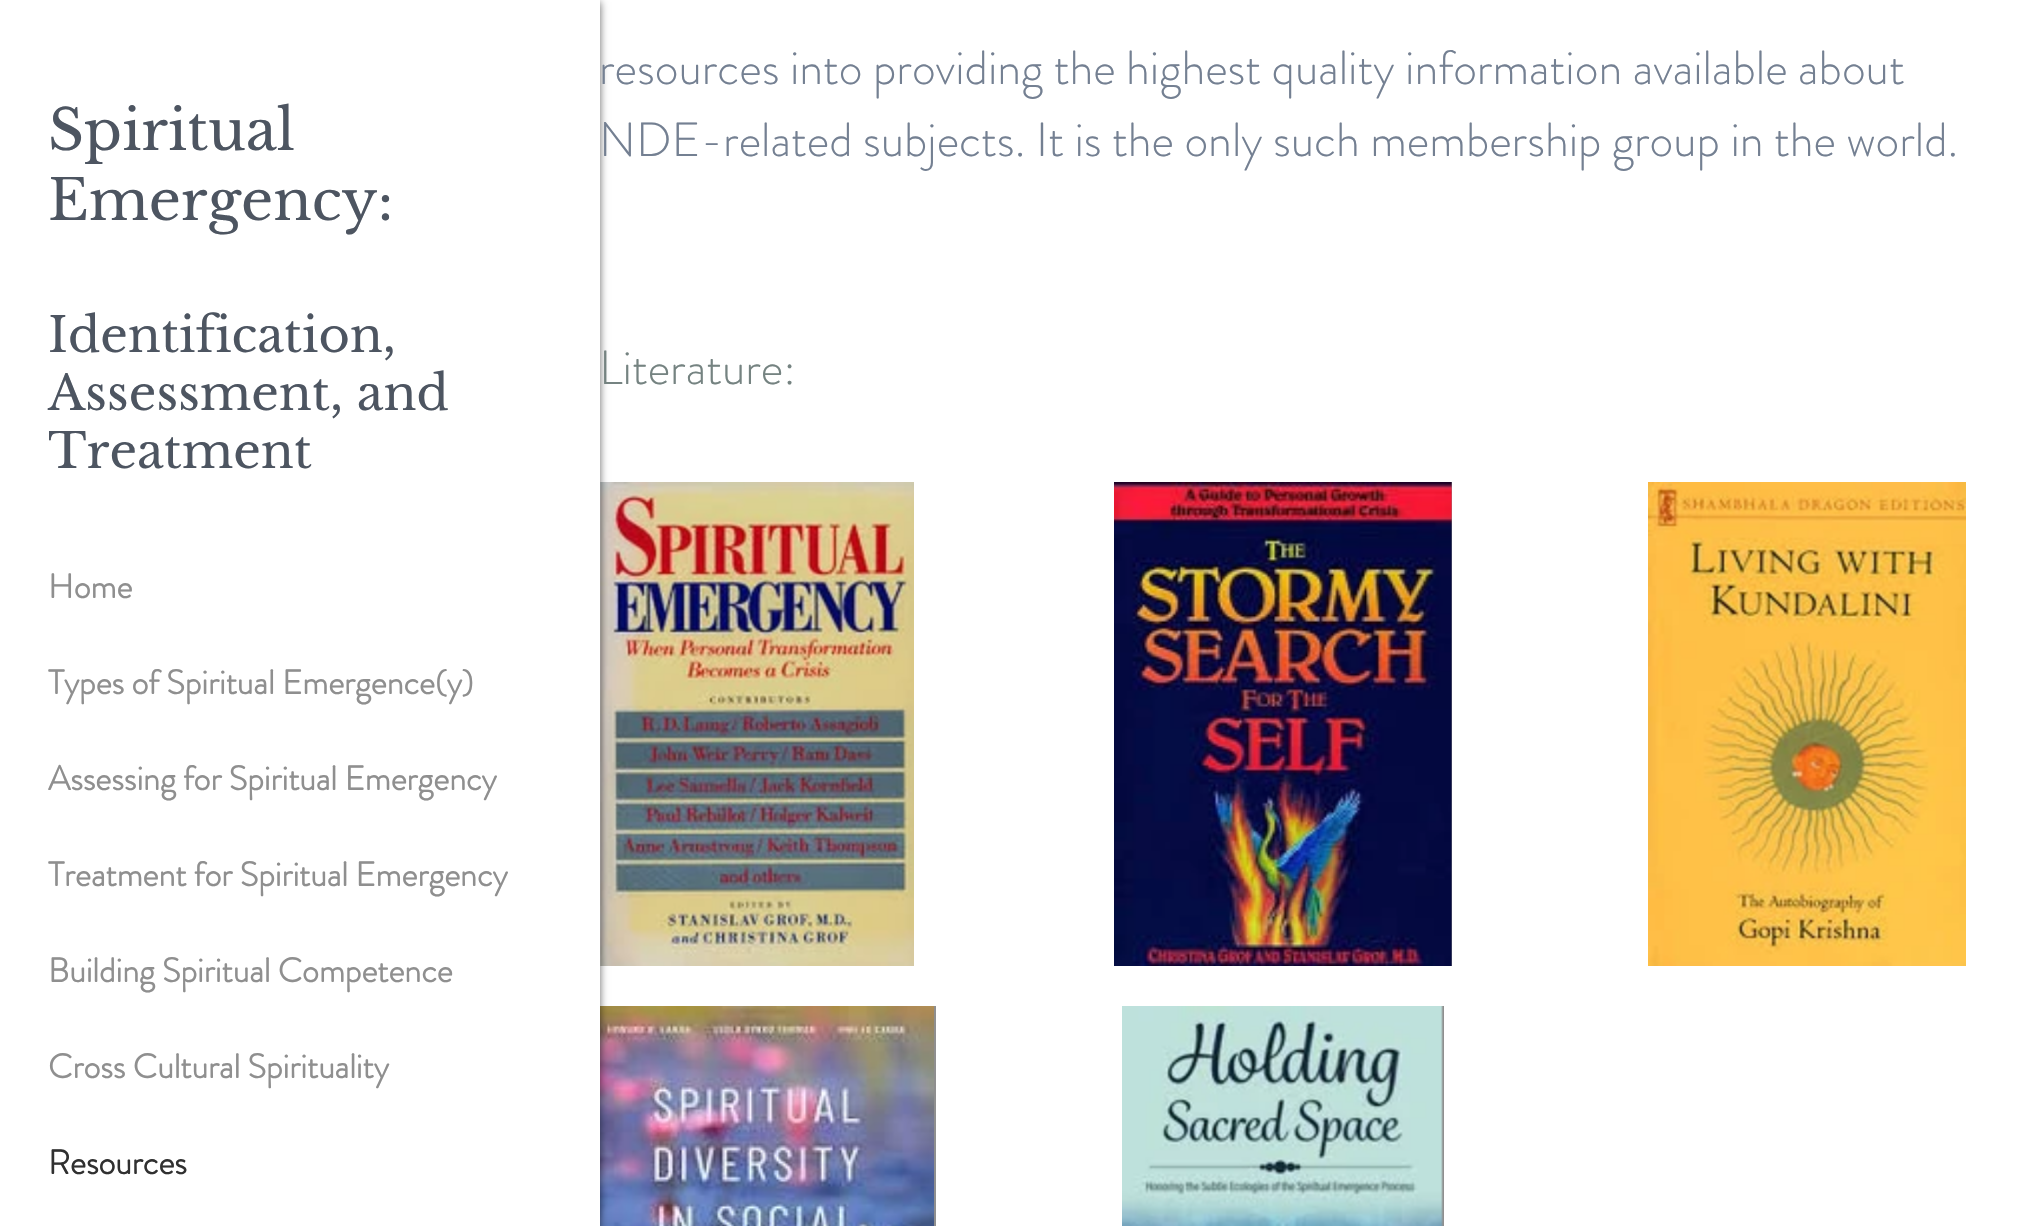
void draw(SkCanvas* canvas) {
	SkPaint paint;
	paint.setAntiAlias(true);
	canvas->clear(0xffffffff);
	canvas->drawImageRect(SkImages::DeferredFromEncodedData(SkData::MakeFromFileName("img1.png")), SkRect::MakeXYWH(600, 482, 314, 484), SkSamplingOptions());
	canvas->drawImageRect(SkImages::DeferredFromEncodedData(SkData::MakeFromFileName("img4.png")), SkRect::MakeXYWH(600, 1006, 334, 220), SkSamplingOptions());
	paint.setColor(0x99000000);
	paint.setMaskFilter(SkMaskFilter::MakeBlur(kNormal_SkBlurStyle, 4));
	canvas->drawRect(SkRect::MakeXYWH(0, 2, 600, 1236), paint);
	paint.setMaskFilter(nullptr);
	paint.setColor(0xffffffff);
	canvas->drawRect(SkRect::MakeXYWH(0, 0, 600, 1226), paint);
	SkFont f1(fontMgr->matchFamilyStyle("Libre Baskerville", SkFontStyle::Normal()), 56);
	f1.setSubpixel(true);
	paint.setColor(0xff4d5561);
	canvas->drawString("Spiritual", 48, 150, f1, paint);
	canvas->drawString("Emergency:", 48, 220, f1, paint);
	SkFont f2(fontMgr->matchFamilyStyle("Libre Baskerville", SkFontStyle::Normal()), 48);
	f2.setSubpixel(true);
	canvas->drawString("Identification,", 48, 352, f2, paint);
	canvas->drawString("Assessment, and", 48, 410, f2, paint);
	canvas->drawString("Treatment", 48, 468, f2, paint);
	SkFont f3(fontMgr->matchFamilyStyle("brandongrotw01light", SkFontStyle::Bold()), 34);
	f3.setSubpixel(true);
	paint.setColor(0xff8f8f8f);
	canvas->drawString("Home", 48, 598, f3, paint);
	canvas->drawString("Types of Spiritual Emergence(y)", 48, 694, f3, paint);
	canvas->drawString("Assessing for Spiritual Emergency", 48, 790, f3, paint);
	canvas->drawString("Treatment for Spiritual Emergency", 48, 886, f3, paint);
	canvas->drawString("Building Spiritual Competence", 48, 982, f3, paint);
	canvas->drawString("Cross Cultural Spirituality", 48, 1078, f3, paint);
	paint.setColor(0xff303030);
	canvas->drawString("Resources", 48, 1174, f3, paint);
	SkFont f4(fontMgr->matchFamilyStyle("brandongrotw01light", SkFontStyle(300, SkFontStyle::kNormal_Width, SkFontStyle::kUpright_Slant)), 48);
	f4.setSubpixel(true);
	paint.setColor(0xff748092);
	canvas->drawString("resources into providing the highest quality information available about", 599, 84, f4, paint);
	canvas->drawString("NDE-related subjects. It is the only such membership group in the world.", 599, 156, f4, paint);
	paint.setColor(0xff758381);
	canvas->drawString("Literature:", 599, 384, f4, paint);
	paint.setColor(0xff8f8f8f);
	canvas->drawRect(SkRect::MakeXYWH(1451, 482, 1, 484), paint);
	canvas->drawImageRect(SkImages::DeferredFromEncodedData(SkData::MakeFromFileName("img2.png")), SkRect::MakeXYWH(1114, 482, 338, 484), SkSamplingOptions());
	canvas->drawImageRect(SkImages::DeferredFromEncodedData(SkData::MakeFromFileName("img3.png")), SkRect::MakeXYWH(1648, 482, 318, 484), SkSamplingOptions());
	canvas->drawRect(SkRect::MakeXYWH(934, 1006, 2, 220), paint);
	canvas->drawRect(SkRect::MakeXYWH(1441, 1006, 3, 220), paint);
	canvas->drawImageRect(SkImages::DeferredFromEncodedData(SkData::MakeFromFileName("img5.png")), SkRect::MakeXYWH(1122, 1006, 321, 220), SkSamplingOptions());
}
